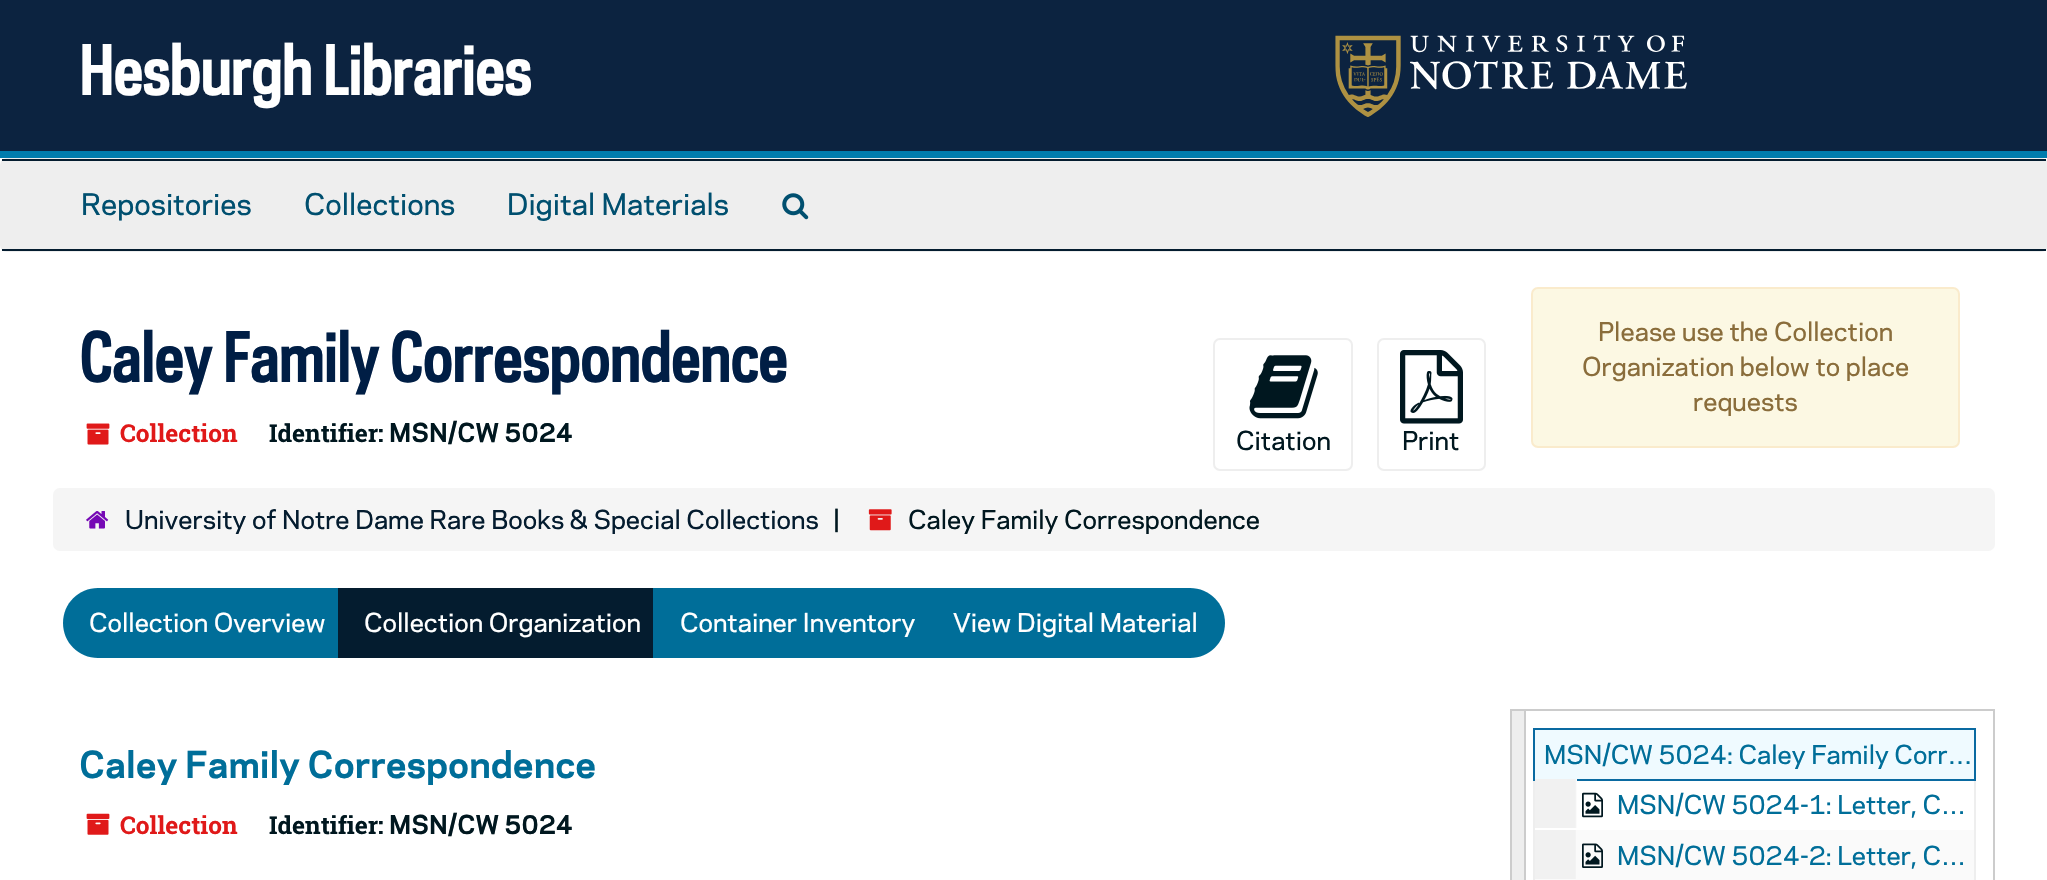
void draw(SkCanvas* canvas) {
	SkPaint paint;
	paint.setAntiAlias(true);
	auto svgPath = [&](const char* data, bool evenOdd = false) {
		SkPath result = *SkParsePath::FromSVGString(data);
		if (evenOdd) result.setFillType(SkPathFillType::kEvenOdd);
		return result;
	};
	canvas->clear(0xffffffff);
	paint.setColor(0xff0c2340);
	canvas->drawRect(SkRect::MakeXYWH(0, 0, 2047, 151), paint);
	paint.setColor(0xff007cad);
	canvas->drawRect(SkRect::MakeXYWH(0, 151, 2047, 7), paint);
	SkFont f1(fontMgr->matchFamilyStyle("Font", SkFontStyle::Bold()), 63);
	f1.setSubpixel(true);
	paint.setColor(0xffffffff);
	canvas->drawString("Hesburgh Libraries", 79, 95, f1, paint);
	canvas->drawImageRect(SkImages::DeferredFromEncodedData(SkData::MakeFromFileName("img1.png")), SkRect::MakeXYWH(1335, 35, 352, 82), SkSamplingOptions());
	paint.setStroke(true);
	paint.setStrokeWidth(2);
	paint.setColor(0xffeeeeee);
	canvas->drawRoundRect(SkRect::MakeXYWH(1, 159, 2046, 92), 6, 6, paint);
	paint.setStroke(false);
	canvas->drawRect(SkRect::MakeXYWH(2, 161, 2044, 88), paint);
	paint.setColor(0xff041c2f);
	canvas->drawRect(SkRect::MakeXYWH(2, 159, 2044, 2), paint);
	canvas->drawRect(SkRect::MakeXYWH(2, 249, 2044, 2), paint);
	SkFont f2(fontMgr->matchFamilyStyle("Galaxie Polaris", SkFontStyle::Normal()), 28);
	f2.setSubpixel(true);
	paint.setColor(0xff004f6f);
	canvas->drawString("Repositories", 81, 215, f2, paint);
	canvas->drawString("Collections", 304, 215, f2, paint);
	canvas->drawString("Digital Materials", 507, 215, f2, paint);
	canvas->drawImageRect(SkImages::DeferredFromEncodedData(SkData::MakeFromFileName("img2.png")), SkRect::MakeXYWH(782, 193, 27, 27), SkSamplingOptions());
	paint.setColor(0xff001e45);
	canvas->drawString("Caley Family Correspondence", 79, 382, f1, paint);
	canvas->drawImageRect(SkImages::DeferredFromEncodedData(SkData::MakeFromFileName("img3.png")), SkRect::MakeXYWH(86, 423, 24, 22), SkSamplingOptions());
	SkFont f3(fontMgr->matchFamilyStyle("Roboto Slab", SkFontStyle::Bold()), 24.5);
	f3.setSubpixel(true);
	paint.setColor(0xffe01919);
	canvas->drawString("Collection", 120, 442, f3, paint);
	paint.setColor(0xff00171f);
	canvas->drawString("Identifier:", 269, 442, f3, paint);
	SkFont f4(fontMgr->matchFamilyStyle("Galaxie Polaris", SkFontStyle::Bold()), 24.5);
	f4.setSubpixel(true);
	canvas->drawString("MSN/CW 5024", 389, 442, f4, paint);
	paint.setColor(0xfffcf8e3);
	canvas->drawRoundRect(SkRect::MakeXYWH(1532, 288, 427, 159), 6, 6, paint);
	paint.setStroke(true);
	paint.setColor(0xfffaebcc);
	canvas->drawRoundRect(SkRect::MakeXYWH(1532, 288, 427, 159), 6, 6, paint);
	SkFont f5(fontMgr->matchFamilyStyle("Galaxie Polaris", SkFontStyle::Normal()), 24.5);
	f5.setSubpixel(true);
	paint.setStroke(false);
	paint.setColor(0xff8a6d3b);
	canvas->drawString("Please use the Collection", 1598, 341, f5, paint);
	canvas->drawString("Organization below to place", 1582, 376, f5, paint);
	canvas->drawString("requests", 1693, 411, f5, paint);
	paint.setStroke(true);
	paint.setColor(0xffeeeeee);
	canvas->drawRoundRect(SkRect::MakeXYWH(1214, 339, 138, 131), 6, 6, paint);
	canvas->drawImageRect(SkImages::DeferredFromEncodedData(SkData::MakeFromFileName("img4.png")), SkRect::MakeXYWH(1249, 355, 69, 64), SkSamplingOptions());
	paint.setStroke(false);
	paint.setColor(0xff00171f);
	canvas->drawString("Citation", 1236, 450, f5, paint);
	paint.setStroke(true);
	paint.setColor(0xffeeeeee);
	canvas->drawRoundRect(SkRect::MakeXYWH(1378, 339, 107, 131), 6, 6, paint);
	canvas->drawImageRect(SkImages::DeferredFromEncodedData(SkData::MakeFromFileName("img5.png")), SkRect::MakeXYWH(1400, 350, 63, 74), SkSamplingOptions());
	paint.setStroke(false);
	paint.setColor(0xff00171f);
	canvas->drawString("Print", 1402, 450, f5, paint);
	paint.setColor(0xfff5f5f5);
	canvas->drawRoundRect(SkRect::MakeXYWH(53, 488, 1942, 63), 7, 7, paint);
	canvas->drawImageRect(SkImages::DeferredFromEncodedData(SkData::MakeFromFileName("img6.png")), SkRect::MakeXYWH(86, 511, 23, 18), SkSamplingOptions());
	paint.setColor(0xff041c2f);
	canvas->drawString("University of Notre Dame Rare Books & Special Collections", 125, 529, f5, paint);
	paint.setColor(0xff00171f);
	canvas->drawString("|", 833, 529, f5, paint);
	canvas->drawImageRect(SkImages::DeferredFromEncodedData(SkData::MakeFromFileName("img7.png")), SkRect::MakeXYWH(868, 509, 24, 22), SkSamplingOptions());
	canvas->drawString("Caley Family Correspondence", 908, 529, f5, paint);
	paint.setColor(0xff006e99);
	canvas->drawPath(svgPath("M98 588H352V658H98C78.5 658 63 642.5 63 623C63 603.5 78.5 588 98 588Z"), paint);
	paint.setColor(0xffffffff);
	canvas->drawString("Collection Overview", 89, 632, f5, paint);
	paint.setColor(0xff041c2f);
	canvas->drawRect(SkRect::MakeXYWH(338, 588, 315, 70), paint);
	paint.setColor(0xffffffff);
	canvas->drawString("Collection Organization", 364, 632, f5, paint);
	paint.setColor(0xff006e99);
	canvas->drawRect(SkRect::MakeXYWH(653, 588, 275, 70), paint);
	paint.setColor(0xffffffff);
	canvas->drawString("Container Inventory", 680, 632, f5, paint);
	paint.setColor(0xff006e99);
	canvas->drawPath(svgPath("M928 588H1190C1209.5 588 1225 603.5 1225 623C1225 642.5 1209.5 658 1190 658H928Z"), paint);
	paint.setColor(0xffffffff);
	canvas->drawString("View Digital Material", 953, 632, f5, paint);
	SkFont f6(fontMgr->matchFamilyStyle("Galaxie Polaris", SkFontStyle::Bold()), 35);
	f6.setSubpixel(true);
	paint.setColor(0xff006e99);
	canvas->drawString("Caley Family Correspondence", 79, 778, f6, paint);
	canvas->drawImageRect(SkImages::DeferredFromEncodedData(SkData::MakeFromFileName("img8.png")), SkRect::MakeXYWH(86, 813, 24, 22), SkSamplingOptions());
	paint.setColor(0xffe01919);
	canvas->drawString("Collection", 120, 834, f3, paint);
	paint.setColor(0xff00171f);
	canvas->drawString("Identifier:", 269, 834, f3, paint);
	canvas->drawString("MSN/CW 5024", 389, 834, f4, paint);
	paint.setStroke(true);
	paint.setColor(0xffcccccc);
	canvas->drawRect(SkRect::MakeXYWH(1511, 710, 483, 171), paint);
	paint.setStroke(false);
	paint.setColor(0xffeeeeee);
	canvas->drawRect(SkRect::MakeXYWH(1512, 711, 12, 169), paint);
	paint.setColor(0xffcccccc);
	canvas->drawRect(SkRect::MakeXYWH(1524, 711, 2, 169), paint);
	paint.setColor(0xffeeeeee);
	canvas->drawRect(SkRect::MakeXYWH(1533, 781, 443, 99), paint);
	paint.setStroke(true);
	paint.setColor(0xff0a6aa1);
	canvas->drawRect(SkRect::MakeXYWH(1534, 729, 441, 51), paint);
	paint.setStroke(false);
	paint.setColor(0xffeffaff);
	canvas->drawRect(SkRect::MakeXYWH(1535, 730, 439, 49), paint);
	paint.setColor(0xff006e99);
	canvas->drawString("MSN/CW 5024: Caley Family Corr…", 1544, 764, f5, paint);
	paint.setColor(0xffffffff);
	canvas->drawRect(SkRect::MakeXYWH(1535, 781, 439, 49), paint);
	{
		const SkColor colors[] = {0xfff1f1f1, 0xfff1f1f1, 0xffffffff};
		const float stops[] = {0, 0.96, 1};
		const SkPoint ends[] = {{1535, 803}, {1577, 803}};
		paint.setShader(SkGradientShader::MakeLinear(ends, colors, stops, 3, SkTileMode::kClamp));
		paint.setAlpha(255);
	}
	canvas->drawRect(SkRect::MakeXYWH(1535, 779, 42, 49), paint);
	canvas->drawImageRect(SkImages::DeferredFromEncodedData(SkData::MakeFromFileName("img9.png")), SkRect::MakeXYWH(1582, 792, 21, 26), SkSamplingOptions());
	paint.setShader(nullptr);
	paint.setColor(0xff006e99);
	canvas->drawString("MSN/CW 5024-1: Letter, C…", 1617, 814, f5, paint);
	paint.setColor(0xfffafafa);
	canvas->drawRect(SkRect::MakeXYWH(1535, 830, 439, 50), paint);
	{
		const SkColor colors[] = {0xfff1f1f1, 0xfff1f1f1, 0xffffffff};
		const float stops[] = {0, 0.96, 1};
		const SkPoint ends[] = {{1535, 854}, {1577, 854}};
		paint.setShader(SkGradientShader::MakeLinear(ends, colors, stops, 3, SkTileMode::kClamp));
		paint.setAlpha(255);
	}
	canvas->drawRect(SkRect::MakeXYWH(1535, 830, 41, 49), paint);
	canvas->drawImageRect(SkImages::DeferredFromEncodedData(SkData::MakeFromFileName("img10.png")), SkRect::MakeXYWH(1582, 843, 21, 25), SkSamplingOptions());
	paint.setShader(nullptr);
	paint.setColor(0xff006e99);
	canvas->drawString("MSN/CW 5024-2: Letter, C…", 1617, 865, f5, paint);
}
